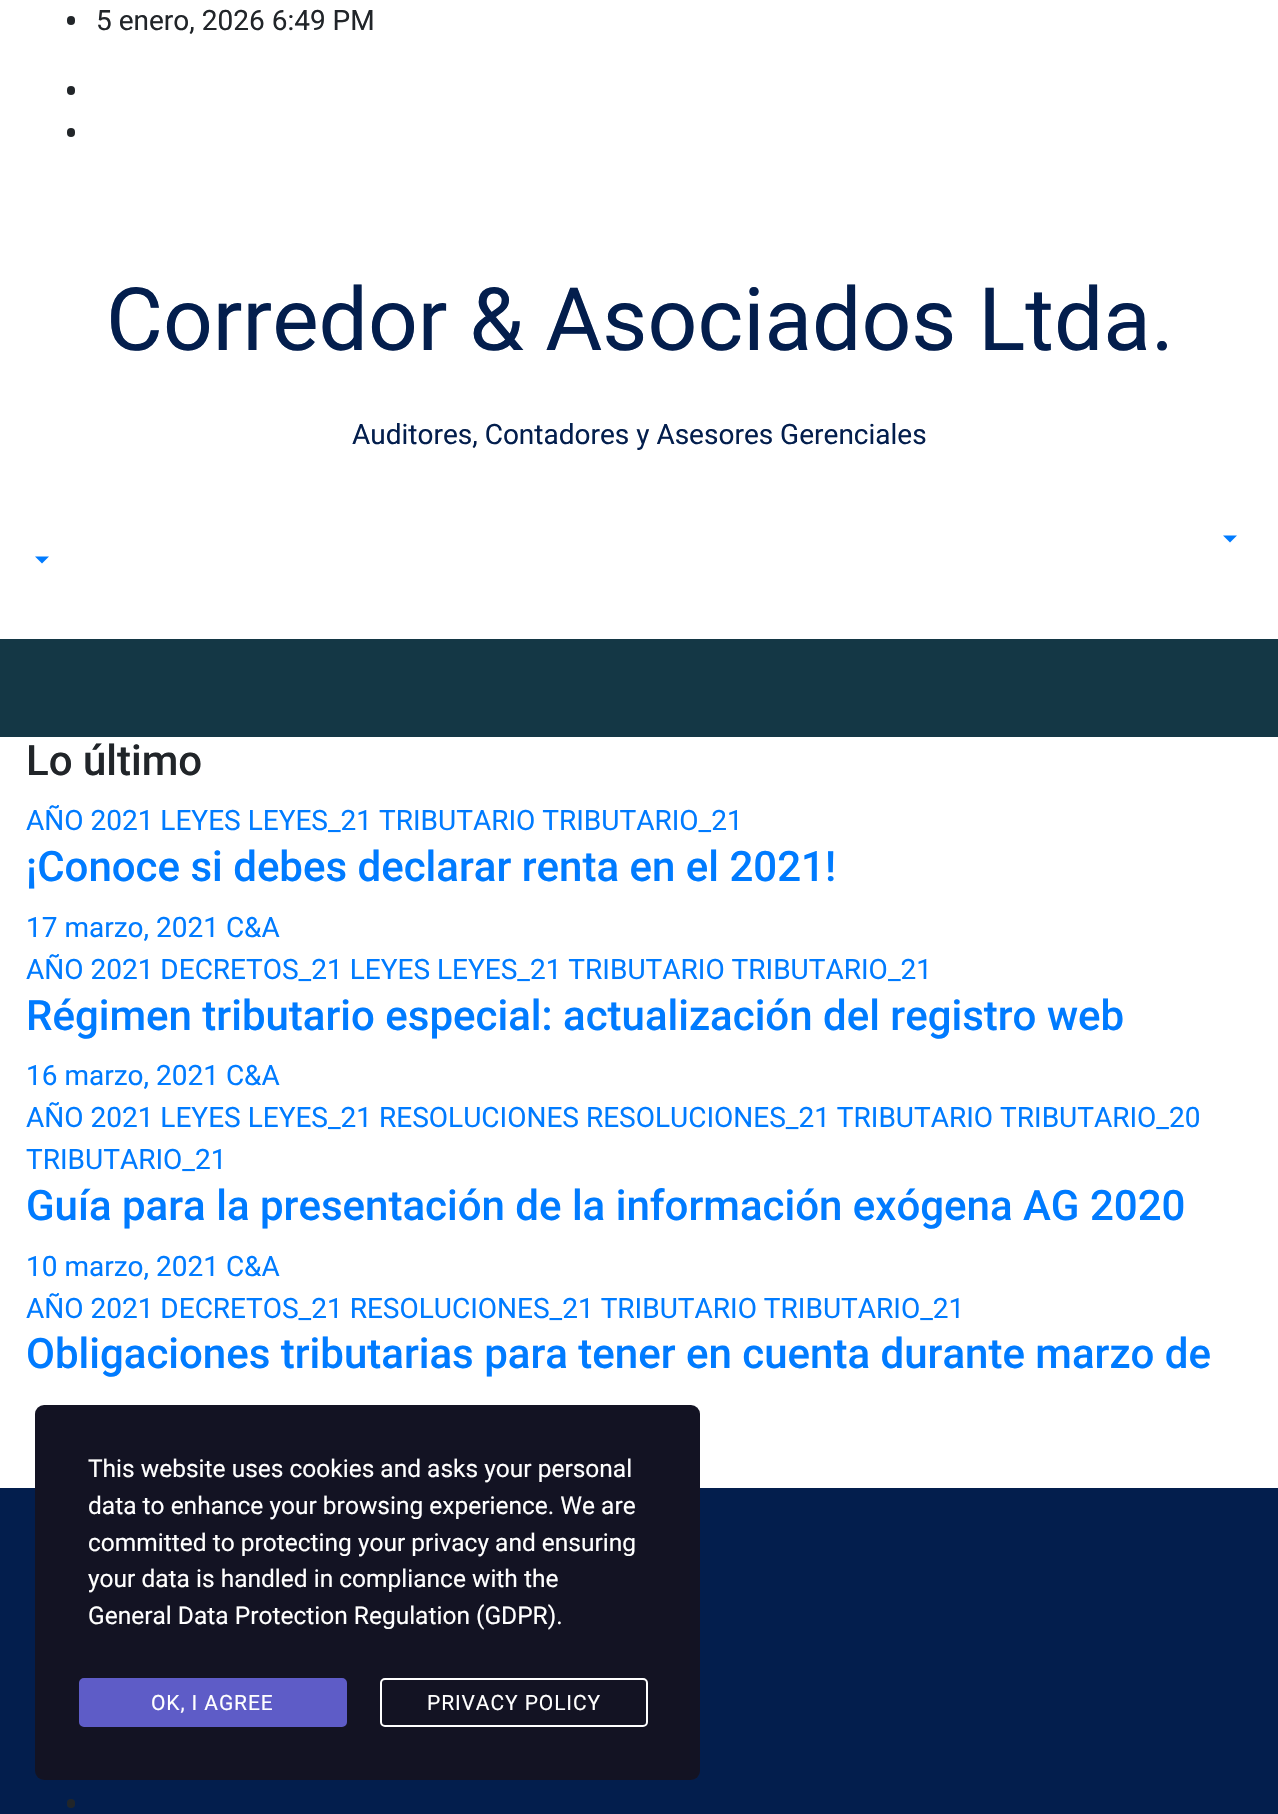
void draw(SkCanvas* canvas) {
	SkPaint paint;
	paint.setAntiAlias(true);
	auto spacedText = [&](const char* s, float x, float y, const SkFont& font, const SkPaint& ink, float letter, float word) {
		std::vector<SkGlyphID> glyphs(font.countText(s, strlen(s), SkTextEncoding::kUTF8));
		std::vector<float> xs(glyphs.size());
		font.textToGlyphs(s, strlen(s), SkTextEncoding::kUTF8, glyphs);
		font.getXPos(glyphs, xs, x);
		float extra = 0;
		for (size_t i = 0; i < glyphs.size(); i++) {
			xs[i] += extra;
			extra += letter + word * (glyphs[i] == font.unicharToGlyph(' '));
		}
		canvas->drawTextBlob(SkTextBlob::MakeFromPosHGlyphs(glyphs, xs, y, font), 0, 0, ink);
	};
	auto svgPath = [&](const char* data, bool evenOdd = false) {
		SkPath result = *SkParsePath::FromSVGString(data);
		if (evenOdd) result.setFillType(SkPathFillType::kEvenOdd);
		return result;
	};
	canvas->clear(0xffffffff);
	paint.setColor(0xff212529);
	canvas->drawRoundRect(SkRect::MakeXYWH(67, 16, 8, 9), 4, 4, paint);
	SkFont f1(fontMgr->matchFamilyStyle("Roboto", SkFontStyle::Normal()), 28);
	f1.setSubpixel(true);
	canvas->drawString("5 enero, 2026 6:49 PM", 96, 30, f1, paint);
	canvas->drawRoundRect(SkRect::MakeXYWH(67, 86, 8, 9), 4, 4, paint);
	canvas->drawRoundRect(SkRect::MakeXYWH(67, 128, 8, 9), 4, 4, paint);
	SkFont f2(fontMgr->matchFamilyStyle("Roboto", SkFontStyle::Normal()), 87.5);
	f2.setSubpixel(true);
	paint.setColor(0xff031e4d);
	canvas->drawString("Corredor & Asociados Ltda.", 106, 350, f2, paint);
	canvas->drawString("Auditores, Contadores y Asesores Gerenciales", 352, 444, f1, paint);
	paint.setColor(0xff007bff);
	canvas->drawPath(svgPath("M1223 535.5H1237L1230 542.5Z"), paint);
	canvas->drawPath(svgPath("M35 556.5H49L42 563.5Z"), paint);
	paint.setColor(0xff143745);
	canvas->drawRect(SkRect::MakeXYWH(0, 639, 1278, 98), paint);
	SkFont f3(fontMgr->matchFamilyStyle("Roboto", SkFontStyle(500, SkFontStyle::kNormal_Width, SkFontStyle::kUpright_Slant)), 42);
	f3.setSubpixel(true);
	paint.setColor(0xff212529);
	canvas->drawString("Lo último", 26, 775, f3, paint);
	paint.setColor(0xff007bff);
	canvas->drawString("AÑO 2021 LEYES LEYES_21 TRIBUTARIO TRIBUTARIO_21", 26, 830, f1, paint);
	canvas->drawString("¡Conoce si debes declarar renta en el 2021!", 26, 881, f3, paint);
	canvas->drawString("17 marzo, 2021 C&A", 26, 937, f1, paint);
	canvas->drawString("AÑO 2021 DECRETOS_21 LEYES LEYES_21 TRIBUTARIO TRIBUTARIO_21", 26, 979, f1, paint);
	canvas->drawString("Régimen tributario especial: actualización del registro web", 26, 1030, f3, paint);
	canvas->drawString("16 marzo, 2021 C&A", 26, 1085, f1, paint);
	canvas->drawString("AÑO 2021 LEYES LEYES_21 RESOLUCIONES RESOLUCIONES_21 TRIBUTARIO TRIBUTARIO_20", 26, 1127, f1, paint);
	canvas->drawString("TRIBUTARIO_21", 26, 1169, f1, paint);
	canvas->drawString("Guía para la presentación de la información exógena AG 2020", 26, 1220, f3, paint);
	canvas->drawString("10 marzo, 2021 C&A", 26, 1276, f1, paint);
	canvas->drawString("AÑO 2021 DECRETOS_21 RESOLUCIONES_21 TRIBUTARIO TRIBUTARIO_21", 26, 1318, f1, paint);
	canvas->drawString("Obligaciones tributarias para tener en cuenta durante marzo de", 26, 1368, f3, paint);
	paint.setColor(0xff031e4d);
	canvas->drawRect(SkRect::MakeXYWH(0, 1488, 1278, 326), paint);
	paint.setColor(0xff212529);
	canvas->drawRoundRect(SkRect::MakeXYWH(67, 1799, 8, 9), 4, 4, paint);
	paint.setColor(0xff131323);
	canvas->drawRoundRect(SkRect::MakeXYWH(35, 1405, 665, 375), 9, 9, paint);
	SkFont f4(fontMgr->matchFamilyStyle("Roboto", SkFontStyle::Normal()), 24.5);
	f4.setSubpixel(true);
	paint.setColor(0xffffffff);
	canvas->drawString("This website uses cookies and asks your personal", 88, 1477, f4, paint);
	canvas->drawString("data to enhance your browsing experience. We are", 88, 1514, f4, paint);
	canvas->drawString("committed to protecting your privacy and ensuring", 88, 1551, f4, paint);
	canvas->drawString("your data is handled in compliance with the", 88, 1587, f4, paint);
	canvas->drawString("General Data Protection Regulation (GDPR).", 88, 1624, f4, paint);
	paint.setColor(0xff5e5cc7);
	canvas->drawRoundRect(SkRect::MakeXYWH(80, 1679, 266, 47), 4, 4, paint);
	paint.setStroke(true);
	paint.setStrokeWidth(2);
	canvas->drawRoundRect(SkRect::MakeXYWH(80, 1679, 266, 47), 4, 4, paint);
	SkFont f5(fontMgr->matchFamilyStyle("Roboto", SkFontStyle::Normal()), 21);
	f5.setSubpixel(true);
	paint.setStroke(false);
	paint.setColor(0xffffffff);
	spacedText("OK, I AGREE", 151, 1710, f5, paint, 0.9, 0);
	paint.setStroke(true);
	canvas->drawRoundRect(SkRect::MakeXYWH(381, 1679, 266, 47), 4, 4, paint);
	paint.setStroke(false);
	spacedText("PRIVACY POLICY", 427, 1710, f5, paint, 0.9, 0);
}
